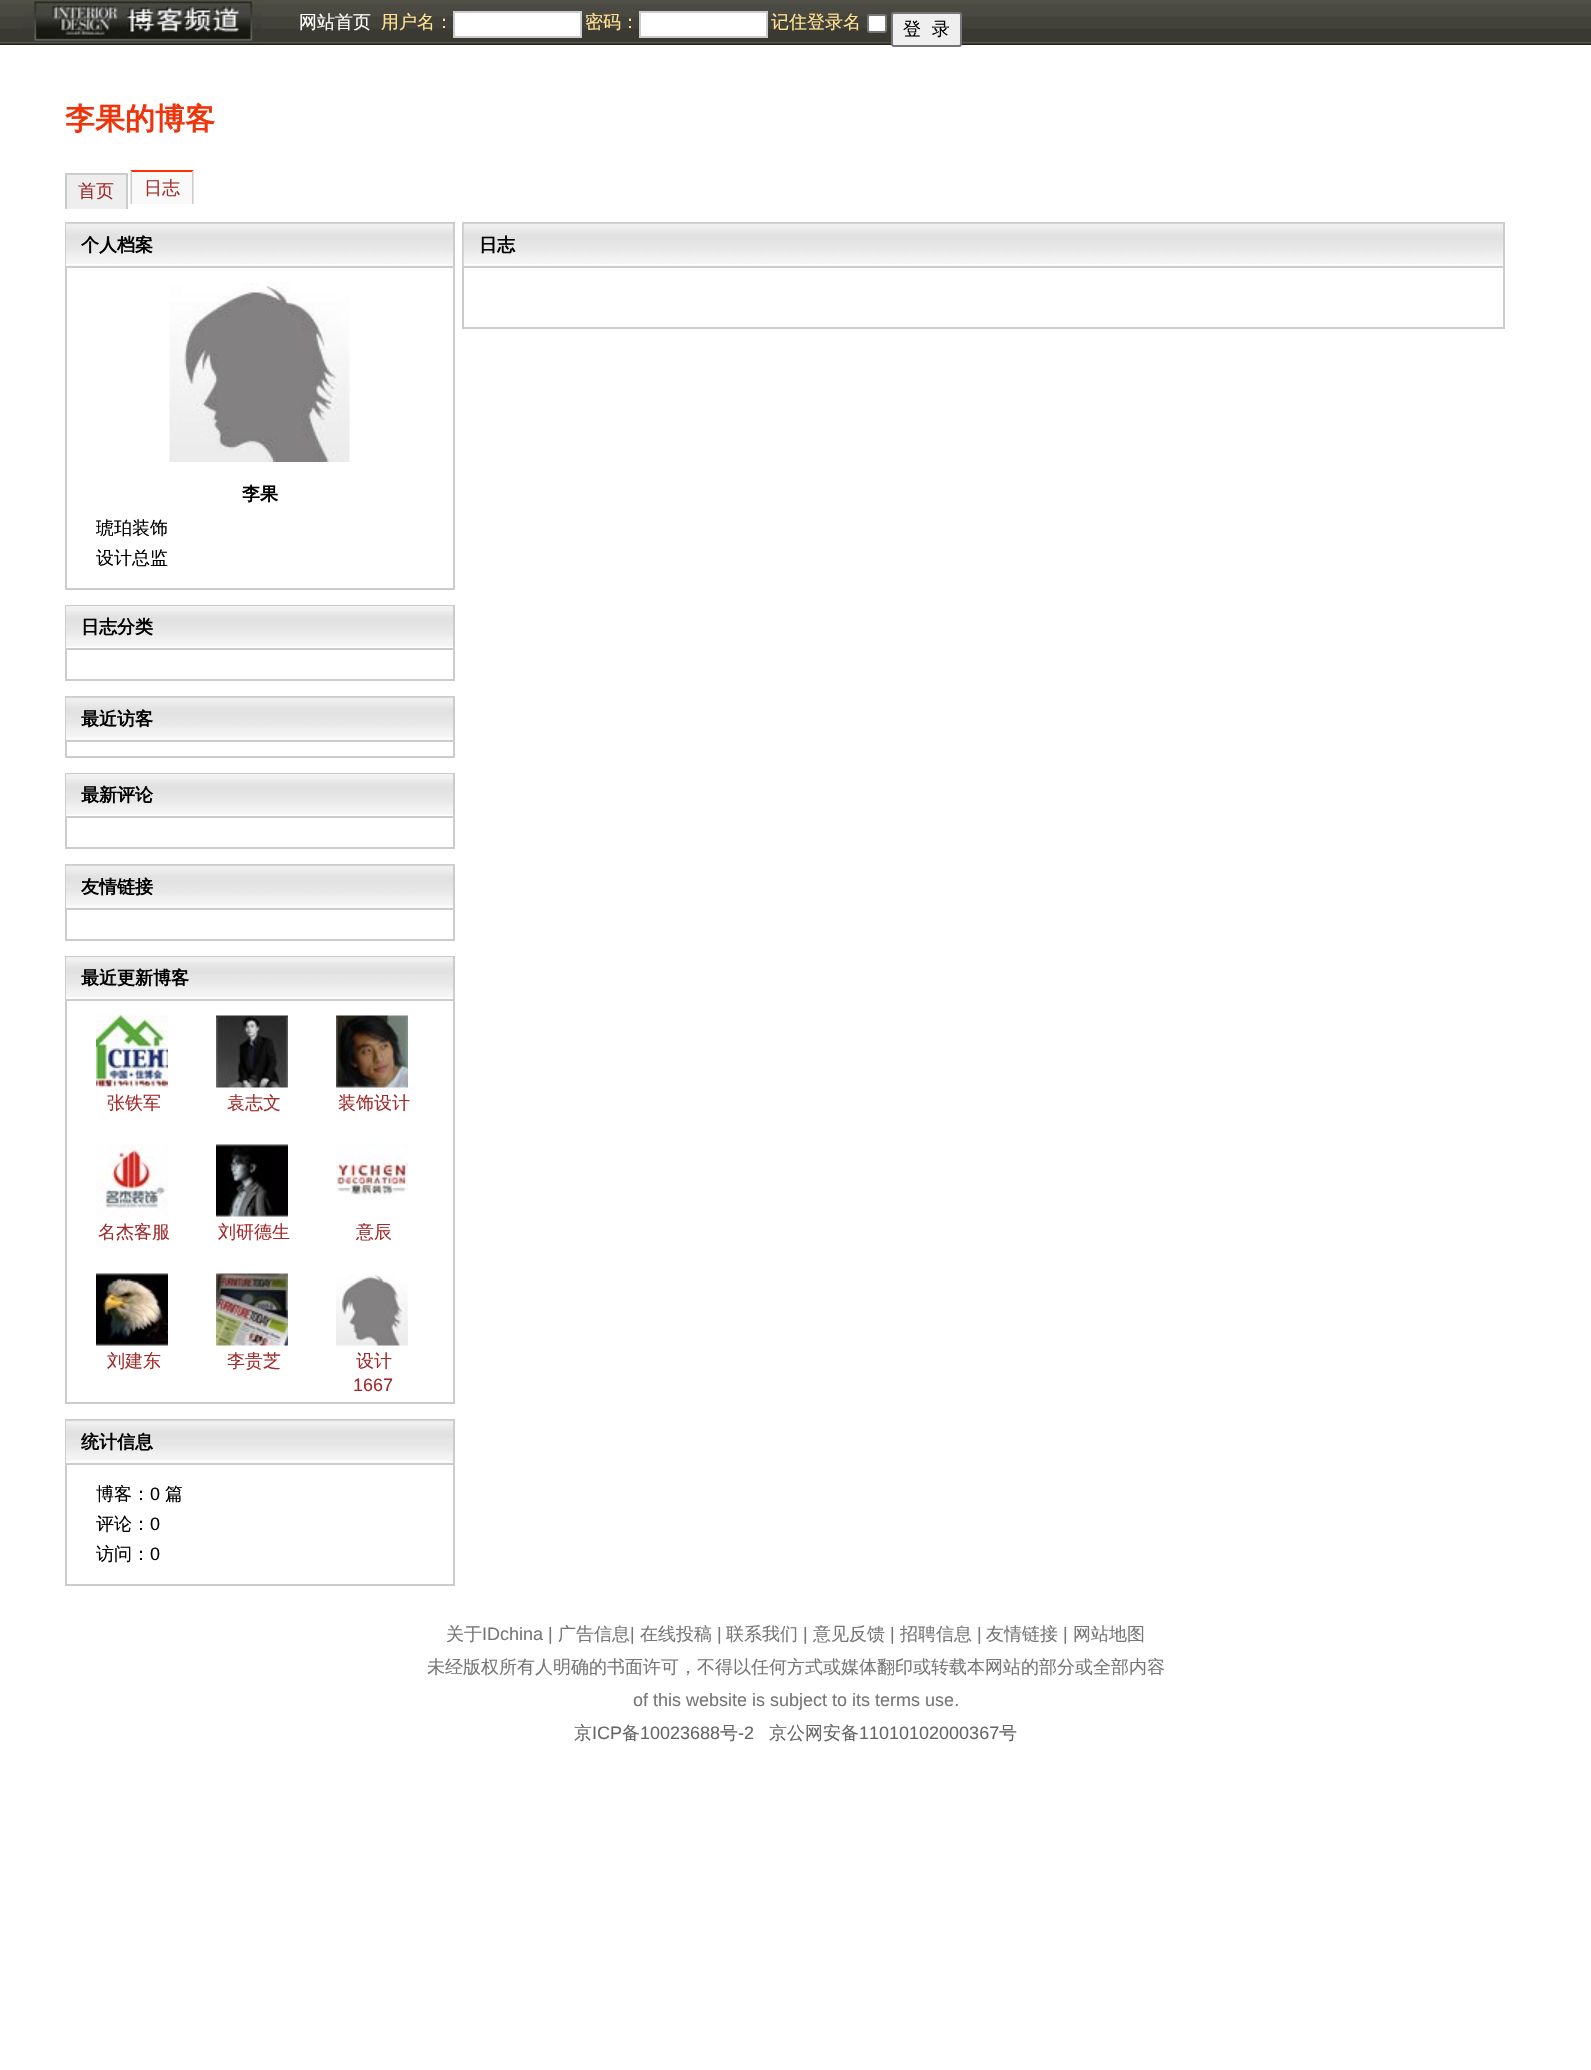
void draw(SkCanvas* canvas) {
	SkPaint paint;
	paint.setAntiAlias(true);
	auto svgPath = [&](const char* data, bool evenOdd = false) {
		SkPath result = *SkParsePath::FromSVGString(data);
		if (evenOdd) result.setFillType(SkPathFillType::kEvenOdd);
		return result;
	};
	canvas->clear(0xffffffff);
	canvas->drawImageRect(SkImages::DeferredFromEncodedData(SkData::MakeFromFileName("img1.png")), SkRect::MakeXYWH(0, 0, 1591, 45), SkSamplingOptions());
	canvas->drawImageRect(SkImages::DeferredFromEncodedData(SkData::MakeFromFileName("img2.png")), SkRect::MakeXYWH(23, 0, 239, 45), SkSamplingOptions());
	SkFont f1(fontMgr->matchFamilyStyle("WenQuanYi Zen Hei", SkFontStyle(500, SkFontStyle::kNormal_Width, SkFontStyle::kUpright_Slant)), 18);
	f1.setSubpixel(true);
	paint.setColor(0xffffffff);
	canvas->drawString("网站首页", 299, 28, f1, paint);
	paint.setColor(0xffffe294);
	canvas->drawString("用户名：", 381, 28, f1, paint);
	paint.setColor(0xffffffff);
	canvas->drawRect(SkRect::MakeXYWH(454, 12, 127, 25), paint);
	paint.setStroke(true);
	paint.setStrokeWidth(2);
	paint.setColor(0xffcccccc);
	canvas->drawRect(SkRect::MakeXYWH(454, 12, 127, 25), paint);
	paint.setStroke(false);
	paint.setColor(0xffffe294);
	canvas->drawString("密码：", 585, 28, f1, paint);
	paint.setColor(0xffffffff);
	canvas->drawRect(SkRect::MakeXYWH(640, 12, 127, 25), paint);
	paint.setStroke(true);
	paint.setColor(0xffcccccc);
	canvas->drawRect(SkRect::MakeXYWH(640, 12, 127, 25), paint);
	paint.setStroke(false);
	paint.setColor(0xffffe294);
	canvas->drawString("记住登录名", 771, 28, f1, paint);
	paint.setColor(0xffffffff);
	canvas->drawRoundRect(SkRect::MakeXYWH(868, 15, 18, 17), 2, 2, paint);
	paint.setStroke(true);
	paint.setColor(0xff767676);
	canvas->drawRoundRect(SkRect::MakeXYWH(868, 15, 18, 17), 2, 2, paint);
	paint.setStroke(false);
	paint.setColor(0xffefefef);
	canvas->drawRoundRect(SkRect::MakeXYWH(892, 13, 69, 33), 2, 2, paint);
	paint.setStroke(true);
	paint.setColor(0xff767676);
	canvas->drawRoundRect(SkRect::MakeXYWH(892, 13, 69, 33), 2, 2, paint);
	paint.setStroke(false);
	paint.setColor(0xff000000);
	canvas->drawString("登  录", 903, 35, f1, paint);
	SkFont f2(fontMgr->matchFamilyStyle("WenQuanYi Zen Hei", SkFontStyle::Bold()), 30);
	f2.setSubpixel(true);
	paint.setColor(0xfff03309);
	canvas->drawString("李果的博客", 65, 129, f2, paint);
	paint.setColor(0xffeeeeee);
	canvas->drawRect(SkRect::MakeXYWH(67, 175, 59, 34), paint);
	paint.setColor(0xffcccccc);
	canvas->drawRect(SkRect::MakeXYWH(65, 173, 63, 2), paint);
	canvas->drawRect(SkRect::MakeXYWH(126, 173, 2, 36), paint);
	canvas->drawRect(SkRect::MakeXYWH(65, 173, 2, 36), paint);
	paint.setColor(0xffa22a2a);
	canvas->drawString("首页", 78, 197, f1, paint);
	paint.setColor(0xfff9f9f9);
	canvas->drawRect(SkRect::MakeXYWH(131, 170, 63, 34), paint);
	paint.setColor(0xffff3300);
	canvas->drawPath(svgPath("M130 170H194L192 172H132Z"), paint);
	paint.setColor(0xffcccccc);
	canvas->drawPath(svgPath("M193.5 169.5V204H192V172.5Z"), paint);
	canvas->drawPath(svgPath("M130.5 204V169.5L132 172.5V204Z"), paint);
	paint.setColor(0xffa22a2a);
	canvas->drawString("日志", 144, 194, f1, paint);
	paint.setStroke(true);
	paint.setColor(0xffcccccc);
	canvas->drawRect(SkRect::MakeXYWH(66, 223, 388, 366), paint);
	paint.setStroke(false);
	paint.setColor(0xfff1f1f1);
	canvas->drawRect(SkRect::MakeXYWH(66, 265, 387, 1), paint);
	canvas->drawImageRect(SkImages::DeferredFromEncodedData(SkData::MakeFromFileName("img3.png")), SkRect::MakeXYWH(66, 223, 387, 43), SkSamplingOptions());
	paint.setColor(0xffcccccc);
	canvas->drawRect(SkRect::MakeXYWH(66, 266, 387, 2), paint);
	SkFont f3(fontMgr->matchFamilyStyle("WenQuanYi Zen Hei", SkFontStyle::Bold()), 18);
	f3.setSubpixel(true);
	paint.setColor(0xff000000);
	canvas->drawString("个人档案", 81, 251, f3, paint);
	canvas->drawImageRect(SkImages::DeferredFromEncodedData(SkData::MakeFromFileName("img4.png")), SkRect::MakeXYWH(169, 282, 181, 180), SkSamplingOptions());
	canvas->drawString("李果", 242, 500, f3, paint);
	canvas->drawString("琥珀装饰", 96, 534, f1, paint);
	canvas->drawString("设计总监", 96, 564, f1, paint);
	paint.setStroke(true);
	paint.setColor(0xffcccccc);
	canvas->drawRect(SkRect::MakeXYWH(66, 606, 388, 74), paint);
	paint.setStroke(false);
	paint.setColor(0xfff1f1f1);
	canvas->drawRect(SkRect::MakeXYWH(66, 606, 387, 5), paint);
	canvas->drawImageRect(SkImages::DeferredFromEncodedData(SkData::MakeFromFileName("img5.png")), SkRect::MakeXYWH(66, 611, 387, 37), SkSamplingOptions());
	paint.setColor(0xffcccccc);
	canvas->drawRect(SkRect::MakeXYWH(66, 648, 387, 2), paint);
	paint.setColor(0xff000000);
	canvas->drawString("日志分类", 81, 633, f3, paint);
	paint.setStroke(true);
	paint.setColor(0xffcccccc);
	canvas->drawRect(SkRect::MakeXYWH(66, 697, 388, 60), paint);
	paint.setStroke(false);
	paint.setColor(0xfff1f1f1);
	canvas->drawRect(SkRect::MakeXYWH(66, 739, 387, 1), paint);
	canvas->drawImageRect(SkImages::DeferredFromEncodedData(SkData::MakeFromFileName("img3.png")), SkRect::MakeXYWH(66, 697, 387, 43), SkSamplingOptions());
	paint.setColor(0xffcccccc);
	canvas->drawRect(SkRect::MakeXYWH(66, 740, 387, 2), paint);
	paint.setColor(0xff000000);
	canvas->drawString("最近访客", 81, 725, f3, paint);
	paint.setStroke(true);
	paint.setColor(0xffcccccc);
	canvas->drawRect(SkRect::MakeXYWH(66, 774, 388, 74), paint);
	paint.setStroke(false);
	paint.setColor(0xfff1f1f1);
	canvas->drawRect(SkRect::MakeXYWH(66, 774, 387, 5), paint);
	canvas->drawImageRect(SkImages::DeferredFromEncodedData(SkData::MakeFromFileName("img5.png")), SkRect::MakeXYWH(66, 779, 387, 37), SkSamplingOptions());
	paint.setColor(0xffcccccc);
	canvas->drawRect(SkRect::MakeXYWH(66, 816, 387, 2), paint);
	paint.setColor(0xff000000);
	canvas->drawString("最新评论", 81, 801, f3, paint);
	paint.setStroke(true);
	paint.setColor(0xffcccccc);
	canvas->drawRect(SkRect::MakeXYWH(66, 865, 388, 75), paint);
	paint.setStroke(false);
	paint.setColor(0xfff1f1f1);
	canvas->drawRect(SkRect::MakeXYWH(66, 907, 387, 1), paint);
	canvas->drawImageRect(SkImages::DeferredFromEncodedData(SkData::MakeFromFileName("img3.png")), SkRect::MakeXYWH(66, 865, 387, 43), SkSamplingOptions());
	paint.setColor(0xffcccccc);
	canvas->drawRect(SkRect::MakeXYWH(66, 908, 387, 2), paint);
	paint.setColor(0xff000000);
	canvas->drawString("友情链接", 81, 893, f3, paint);
	paint.setStroke(true);
	paint.setColor(0xffcccccc);
	canvas->drawRect(SkRect::MakeXYWH(66, 957, 388, 446), paint);
	paint.setStroke(false);
	paint.setColor(0xfff1f1f1);
	canvas->drawRect(SkRect::MakeXYWH(66, 957, 387, 4), paint);
	canvas->drawImageRect(SkImages::DeferredFromEncodedData(SkData::MakeFromFileName("img6.png")), SkRect::MakeXYWH(66, 961, 387, 38), SkSamplingOptions());
	paint.setColor(0xffcccccc);
	canvas->drawRect(SkRect::MakeXYWH(66, 999, 387, 2), paint);
	paint.setColor(0xff000000);
	canvas->drawString("最近更新博客", 81, 984, f3, paint);
	canvas->drawImageRect(SkImages::DeferredFromEncodedData(SkData::MakeFromFileName("img7.png")), SkRect::MakeXYWH(96, 1015, 72, 73), SkSamplingOptions());
	paint.setColor(0xffa22a2a);
	canvas->drawString("张铁军", 107, 1109, f1, paint);
	canvas->drawImageRect(SkImages::DeferredFromEncodedData(SkData::MakeFromFileName("img8.png")), SkRect::MakeXYWH(216, 1015, 72, 73), SkSamplingOptions());
	canvas->drawString("袁志文", 227, 1109, f1, paint);
	canvas->drawImageRect(SkImages::DeferredFromEncodedData(SkData::MakeFromFileName("img9.png")), SkRect::MakeXYWH(336, 1015, 72, 73), SkSamplingOptions());
	canvas->drawString("装饰设计", 338, 1109, f1, paint);
	canvas->drawImageRect(SkImages::DeferredFromEncodedData(SkData::MakeFromFileName("img10.png")), SkRect::MakeXYWH(96, 1144, 72, 73), SkSamplingOptions());
	canvas->drawString("名杰客服", 98, 1238, f1, paint);
	canvas->drawImageRect(SkImages::DeferredFromEncodedData(SkData::MakeFromFileName("img11.png")), SkRect::MakeXYWH(216, 1144, 72, 73), SkSamplingOptions());
	canvas->drawString("刘研德生", 218, 1238, f1, paint);
	canvas->drawImageRect(SkImages::DeferredFromEncodedData(SkData::MakeFromFileName("img12.png")), SkRect::MakeXYWH(336, 1144, 72, 56), SkSamplingOptions());
	canvas->drawString("意辰", 356, 1238, f1, paint);
	canvas->drawImageRect(SkImages::DeferredFromEncodedData(SkData::MakeFromFileName("img13.png")), SkRect::MakeXYWH(96, 1273, 72, 73), SkSamplingOptions());
	canvas->drawString("刘建东", 107, 1367, f1, paint);
	canvas->drawImageRect(SkImages::DeferredFromEncodedData(SkData::MakeFromFileName("img14.png")), SkRect::MakeXYWH(216, 1273, 72, 73), SkSamplingOptions());
	canvas->drawString("李贵芝", 227, 1367, f1, paint);
	canvas->drawImageRect(SkImages::DeferredFromEncodedData(SkData::MakeFromFileName("img15.png")), SkRect::MakeXYWH(336, 1274, 72, 72), SkSamplingOptions());
	canvas->drawString("设计", 356, 1367, f1, paint);
	SkFont f4(fontMgr->matchFamilyStyle("Liberation Sans", SkFontStyle::Normal()), 18);
	f4.setSubpixel(true);
	canvas->drawString("1667", 353, 1391, f4, paint);
	paint.setStroke(true);
	paint.setColor(0xffcccccc);
	canvas->drawRect(SkRect::MakeXYWH(66, 1420, 388, 165), paint);
	paint.setStroke(false);
	paint.setColor(0xfff1f1f1);
	canvas->drawRect(SkRect::MakeXYWH(66, 1462, 387, 1), paint);
	canvas->drawImageRect(SkImages::DeferredFromEncodedData(SkData::MakeFromFileName("img3.png")), SkRect::MakeXYWH(66, 1420, 387, 43), SkSamplingOptions());
	paint.setColor(0xffcccccc);
	canvas->drawRect(SkRect::MakeXYWH(66, 1463, 387, 2), paint);
	paint.setColor(0xff000000);
	canvas->drawString("统计信息", 81, 1448, f3, paint);
	canvas->drawString("博客：", 96, 1500, f1, paint);
	canvas->drawString("0", 150, 1500, f4, paint);
	canvas->drawString("篇", 165, 1500, f1, paint);
	canvas->drawString("评论：", 96, 1530, f1, paint);
	canvas->drawString("0", 150, 1530, f4, paint);
	canvas->drawString("访问：", 96, 1560, f1, paint);
	canvas->drawString("0", 150, 1560, f4, paint);
	paint.setStroke(true);
	paint.setColor(0xffcccccc);
	canvas->drawRect(SkRect::MakeXYWH(463, 223, 1041, 105), paint);
	paint.setStroke(false);
	paint.setColor(0xfff1f1f1);
	canvas->drawRect(SkRect::MakeXYWH(464, 265, 1039, 1), paint);
	canvas->drawImageRect(SkImages::DeferredFromEncodedData(SkData::MakeFromFileName("img16.png")), SkRect::MakeXYWH(463, 223, 1040, 43), SkSamplingOptions());
	paint.setColor(0xffcccccc);
	canvas->drawRect(SkRect::MakeXYWH(464, 266, 1039, 2), paint);
	paint.setColor(0xff000000);
	canvas->drawString("日志", 479, 251, f3, paint);
	paint.setColor(0xff767676);
	canvas->drawString("关于", 446, 1640, f1, paint);
	canvas->drawString("IDchina |", 482, 1640, f4, paint);
	canvas->drawString("广告信息", 558, 1640, f1, paint);
	canvas->drawString("|", 630, 1640, f4, paint);
	canvas->drawString("在线投稿", 640, 1640, f1, paint);
	canvas->drawString("|", 717, 1640, f4, paint);
	canvas->drawString("联系我们", 726, 1640, f1, paint);
	canvas->drawString("|", 803, 1640, f4, paint);
	canvas->drawString("意见反馈", 813, 1640, f1, paint);
	canvas->drawString("|", 890, 1640, f4, paint);
	canvas->drawString("招聘信息", 900, 1640, f1, paint);
	canvas->drawString("|", 977, 1640, f4, paint);
	canvas->drawString("友情链接", 986, 1640, f1, paint);
	canvas->drawString("|", 1063, 1640, f4, paint);
	canvas->drawString("网站地图", 1073, 1640, f1, paint);
	canvas->drawString("未经版权所有人明确的书面许可，不得以任何方式或媒体翻印或转载本网站的部分或全部内容", 427, 1673, f1, paint);
	canvas->drawString("of this website is subject to its terms use.", 633, 1706, f4, paint);
	paint.setColor(0xff666666);
	canvas->drawString("京", 574, 1739, f1, paint);
	canvas->drawString("ICP", 592, 1739, f4, paint);
	canvas->drawString("备", 622, 1739, f1, paint);
	canvas->drawString("10023688", 640, 1739, f4, paint);
	canvas->drawString("号", 720, 1739, f1, paint);
	canvas->drawString("-2", 738, 1739, f4, paint);
	canvas->drawString("京公网安备", 769, 1739, f1, paint);
	canvas->drawString("11010102000367", 859, 1739, f4, paint);
	canvas->drawString("号", 999, 1739, f1, paint);
}
